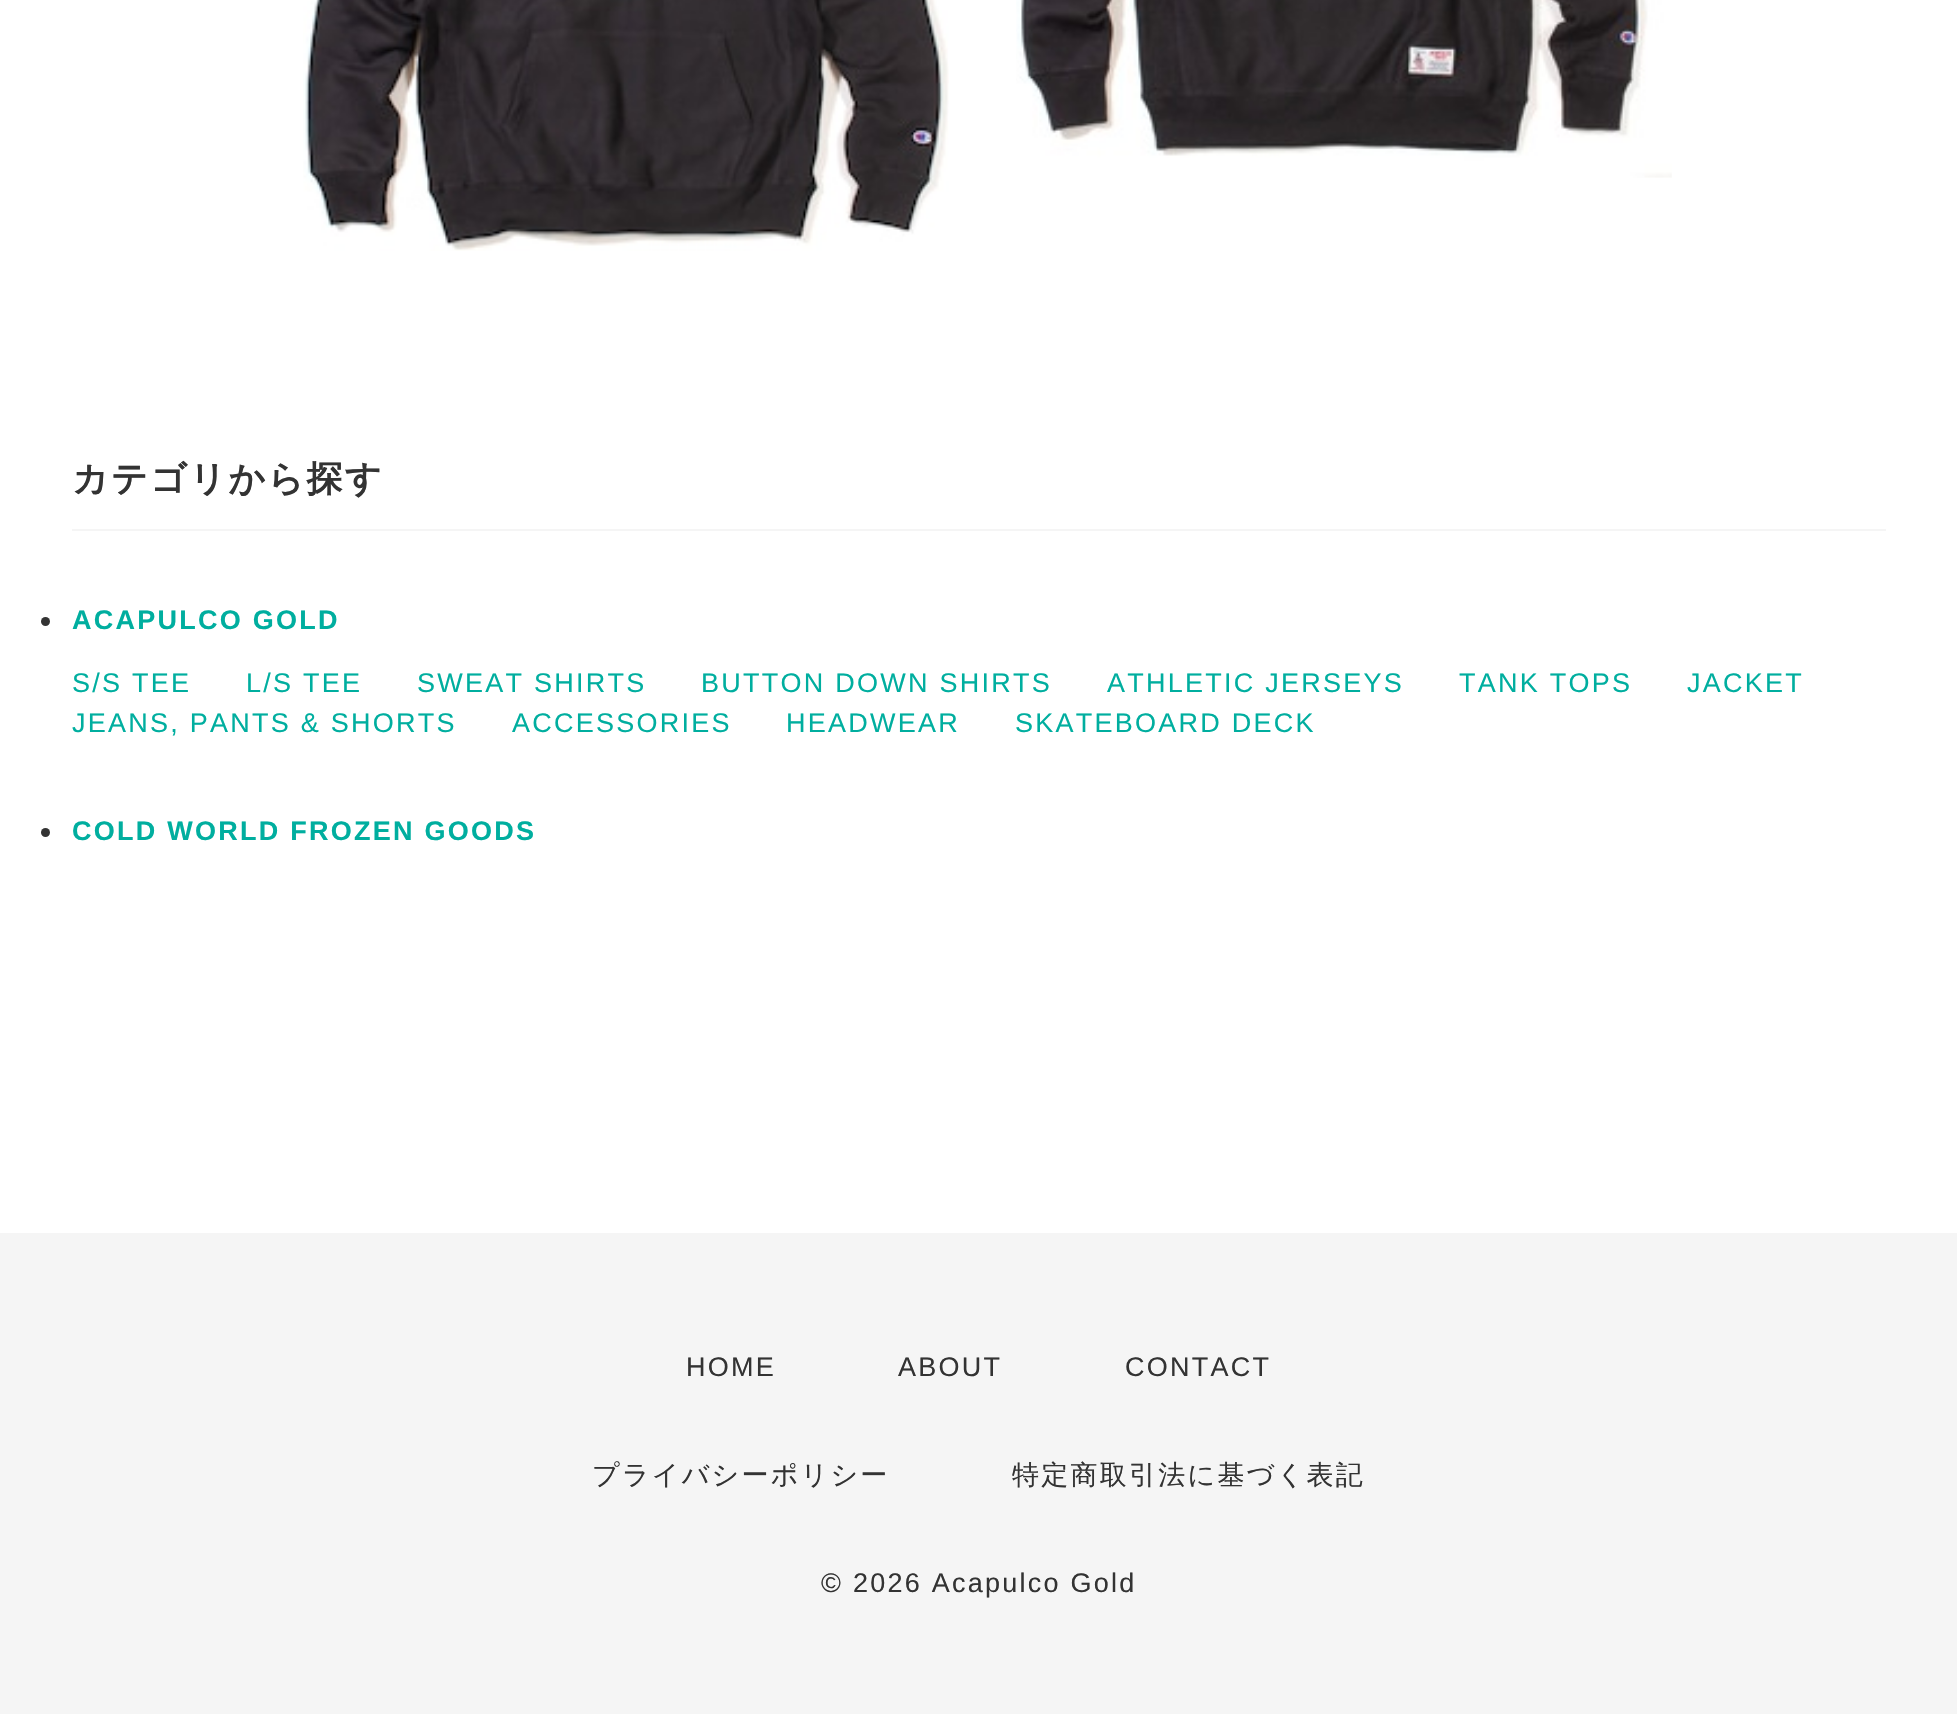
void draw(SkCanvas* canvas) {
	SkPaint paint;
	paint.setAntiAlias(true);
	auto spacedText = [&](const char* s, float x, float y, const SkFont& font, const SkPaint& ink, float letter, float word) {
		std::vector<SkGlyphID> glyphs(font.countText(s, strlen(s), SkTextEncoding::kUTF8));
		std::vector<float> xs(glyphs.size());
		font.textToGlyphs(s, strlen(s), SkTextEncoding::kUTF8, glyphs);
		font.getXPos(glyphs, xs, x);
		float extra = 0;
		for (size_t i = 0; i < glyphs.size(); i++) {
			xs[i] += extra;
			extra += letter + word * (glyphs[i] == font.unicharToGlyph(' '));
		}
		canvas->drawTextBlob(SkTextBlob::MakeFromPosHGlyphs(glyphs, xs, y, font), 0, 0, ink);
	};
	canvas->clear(0xffffffff);
	canvas->drawImageRect(SkImages::DeferredFromEncodedData(SkData::MakeFromFileName("img1.png")), SkRect::MakeXYWH(303, 0, 646, 251), SkSamplingOptions());
	canvas->drawImageRect(SkImages::DeferredFromEncodedData(SkData::MakeFromFileName("img2.png")), SkRect::MakeXYWH(1016, 0, 656, 178), SkSamplingOptions());
	paint.setColor(0xfff5f5f5);
	canvas->drawRect(SkRect::MakeXYWH(72, 529, 1814, 2), paint);
	SkFont f1(fontMgr->matchFamilyStyle("WenQuanYi Zen Hei", SkFontStyle::Bold()), 36);
	f1.setSubpixel(true);
	paint.setColor(0xff333333);
	spacedText("カテゴリから探す", 72, 491, f1, paint, 2.25, 0);
	canvas->drawCircle(45.5, 621.5, 4.5, paint);
	SkFont f2(fontMgr->matchFamilyStyle("Liberation Sans", SkFontStyle::Bold()), 27);
	f2.setSubpixel(true);
	paint.setColor(0xff00ae9f);
	spacedText("ACAPULCO GOLD", 72, 629, f2, paint, 2.25, 0);
	SkFont f3(fontMgr->matchFamilyStyle("Liberation Sans", SkFontStyle::Normal()), 27);
	f3.setSubpixel(true);
	spacedText("S/S TEE", 72, 692, f3, paint, 2.25, 0);
	spacedText("L/S TEE", 246, 692, f3, paint, 2.25, 0);
	spacedText("SWEAT SHIRTS", 417, 692, f3, paint, 2.25, 0);
	spacedText("BUTTON DOWN SHIRTS", 701, 692, f3, paint, 2.25, 0);
	spacedText("ATHLETIC JERSEYS", 1107, 692, f3, paint, 2.25, 0);
	spacedText("TANK TOPS", 1459, 692, f3, paint, 2.25, 0);
	spacedText("JACKET", 1687, 692, f3, paint, 2.25, 0);
	spacedText("JEANS, PANTS & SHORTS", 72, 732, f3, paint, 2.25, 0);
	spacedText("ACCESSORIES", 512, 732, f3, paint, 2.25, 0);
	spacedText("HEADWEAR", 786, 732, f3, paint, 2.25, 0);
	spacedText("SKATEBOARD DECK", 1015, 732, f3, paint, 2.25, 0);
	paint.setColor(0xff333333);
	canvas->drawCircle(45.5, 832.5, 4.5, paint);
	paint.setColor(0xff00ae9f);
	spacedText("COLD WORLD FROZEN GOODS", 72, 840, f2, paint, 2.25, 0);
	paint.setColor(0xfff5f5f5);
	canvas->drawRect(SkRect::MakeXYWH(0, 1233, 1957, 481), paint);
	paint.setColor(0xff333333);
	spacedText("HOME", 686, 1376, f3, paint, 2.25, 0);
	spacedText("ABOUT", 898, 1376, f3, paint, 2.25, 0);
	spacedText("CONTACT", 1125, 1376, f3, paint, 2.25, 0);
	SkFont f4(fontMgr->matchFamilyStyle("WenQuanYi Zen Hei", SkFontStyle(500, SkFontStyle::kNormal_Width, SkFontStyle::kUpright_Slant)), 27);
	f4.setSubpixel(true);
	spacedText("プライバシーポリシー", 592, 1484, f4, paint, 2.25, 0);
	spacedText("特定商取引法に基づく表記", 1012, 1484, f4, paint, 2.25, 0);
	spacedText("© 2026 Acapulco Gold", 821, 1592, f3, paint, 2.25, 0);
}
